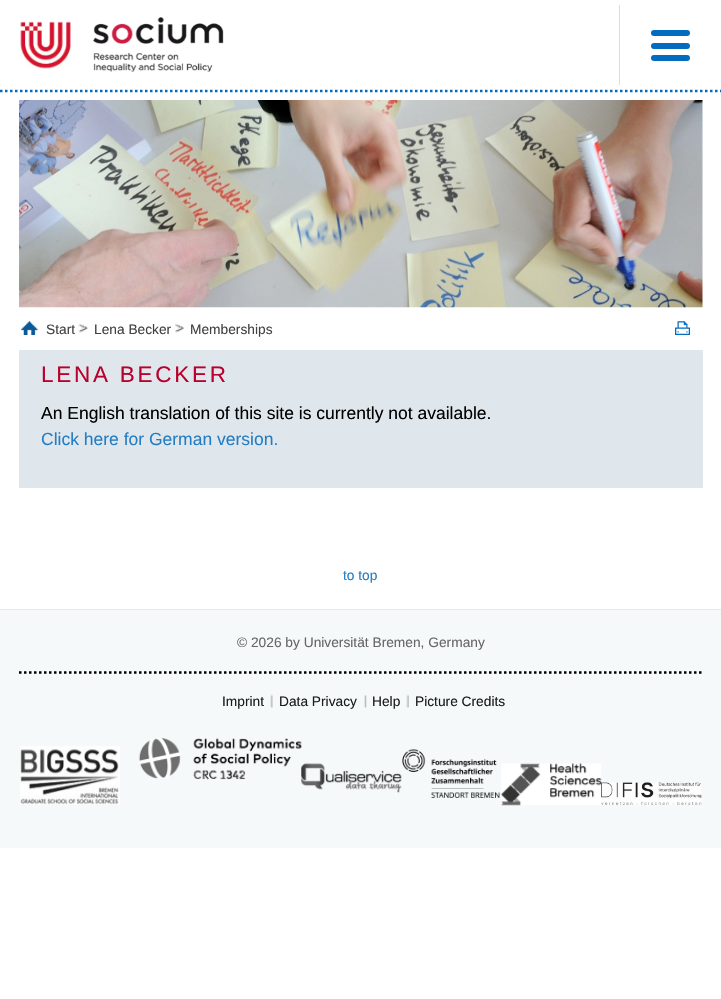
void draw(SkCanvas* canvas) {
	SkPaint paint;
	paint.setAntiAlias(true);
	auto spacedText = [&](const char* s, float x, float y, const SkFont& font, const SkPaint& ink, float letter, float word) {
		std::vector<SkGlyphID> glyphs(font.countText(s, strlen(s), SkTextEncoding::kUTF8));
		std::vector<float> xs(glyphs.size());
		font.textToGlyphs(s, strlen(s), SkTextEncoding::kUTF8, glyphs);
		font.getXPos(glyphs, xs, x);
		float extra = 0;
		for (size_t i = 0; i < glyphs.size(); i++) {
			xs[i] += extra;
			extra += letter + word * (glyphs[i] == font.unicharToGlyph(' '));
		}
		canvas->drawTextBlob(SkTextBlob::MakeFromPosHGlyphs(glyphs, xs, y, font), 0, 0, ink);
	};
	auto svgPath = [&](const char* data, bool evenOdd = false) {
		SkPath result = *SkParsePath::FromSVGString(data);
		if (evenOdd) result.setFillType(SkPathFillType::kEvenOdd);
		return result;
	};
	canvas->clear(0xffffffff);
	paint.setStroke(true);
	paint.setStrokeWidth(2.5);
	paint.setColor(0xff046cbe);
	paint.setPathEffect(SkDashPathEffect::Make({{2.5f, 2.5f}}, 0));
	canvas->drawPath(svgPath("M0 91H721"), paint);
	paint.setPathEffect(nullptr);
	canvas->drawImageRect(SkImages::DeferredFromEncodedData(SkData::MakeFromFileName("img1.png")), SkRect::MakeXYWH(20, 21, 51, 48), SkSamplingOptions());
	canvas->drawImageRect(SkImages::DeferredFromEncodedData(SkData::MakeFromFileName("img2.png")), SkRect::MakeXYWH(93, 17, 131, 55), SkSamplingOptions());
	paint.setStroke(false);
	paint.setColor(0xffdcdcdc);
	canvas->drawRect(SkRect::MakeXYWH(619, 5, 1, 80), paint);
	paint.setColor(0xff046cbe);
	canvas->drawRoundRect(SkRect::MakeXYWH(651, 43, 39, 6), 3, 3, paint);
	canvas->drawRoundRect(SkRect::MakeXYWH(651, 30, 39, 6), 3, 3, paint);
	canvas->drawRoundRect(SkRect::MakeXYWH(651, 55, 39, 6), 3, 3, paint);
	canvas->drawImageRect(SkImages::DeferredFromEncodedData(SkData::MakeFromFileName("img3.png")), SkRect::MakeXYWH(19, 100, 684, 208), SkSamplingOptions());
	canvas->drawImageRect(SkImages::DeferredFromEncodedData(SkData::MakeFromFileName("img4.png")), SkRect::MakeXYWH(19, 307, 684, 1), SkSamplingOptions());
	canvas->drawImageRect(SkImages::DeferredFromEncodedData(SkData::MakeFromFileName("img5.png")), SkRect::MakeXYWH(21, 321, 17, 14), SkSamplingOptions());
	SkFont f1(fontMgr->matchFamilyStyle("Liberation Sans", SkFontStyle::Normal()), 13.75);
	f1.setSubpixel(true);
	paint.setColor(0xff414141);
	canvas->drawString("Start", 46, 334, f1, paint);
	canvas->drawImageRect(SkImages::DeferredFromEncodedData(SkData::MakeFromFileName("img6.png")), SkRect::MakeXYWH(78, 323, 10, 10), SkSamplingOptions());
	canvas->drawString("Lena Becker", 94, 334, f1, paint);
	canvas->drawImageRect(SkImages::DeferredFromEncodedData(SkData::MakeFromFileName("img7.png")), SkRect::MakeXYWH(175, 323, 9, 10), SkSamplingOptions());
	canvas->drawString("Memberships", 190, 334, f1, paint);
	canvas->drawImageRect(SkImages::DeferredFromEncodedData(SkData::MakeFromFileName("img8.png")), SkRect::MakeXYWH(675, 321, 15, 14), SkSamplingOptions());
	paint.setColor(0xffdfe7ec);
	canvas->drawRect(SkRect::MakeXYWH(19, 350, 684, 138), paint);
	SkFont f2(fontMgr->matchFamilyStyle("Liberation Sans", SkFontStyle::Normal()), 22.5);
	f2.setSubpixel(true);
	paint.setColor(0xffba002c);
	spacedText("LENA BECKER", 41, 382, f2, paint, 2.75, 0);
	SkFont f3(fontMgr->matchFamilyStyle("Liberation Sans", SkFontStyle::Normal()), 17.5);
	f3.setSubpixel(true);
	paint.setColor(0xff000000);
	canvas->drawString("An English translation of this site is currently not available.", 41, 419, f3, paint);
	paint.setColor(0xff247dc3);
	canvas->drawString("Click here for German version.", 41, 445, f3, paint);
	canvas->drawString("to top", 343, 580, f1, paint);
	paint.setColor(0xfff5f9fa);
	canvas->drawRect(SkRect::MakeXYWH(0, 610, 721, 238), paint);
	paint.setColor(0xffe8e8e8);
	canvas->drawRect(SkRect::MakeXYWH(0, 609, 721, 1), paint);
	paint.setStroke(true);
	paint.setColor(0xff000000);
	paint.setPathEffect(SkDashPathEffect::Make({{2.5f, 2.5f}}, 0));
	canvas->drawPath(svgPath("M19 672.5H702.5"), paint);
	paint.setPathEffect(nullptr);
	paint.setStroke(false);
	paint.setColor(0xff666666);
	canvas->drawString("© 2026 by Universität Bremen, Germany", 237, 647, f1, paint);
	canvas->drawImageRect(SkImages::DeferredFromEncodedData(SkData::MakeFromFileName("img9.png")), SkRect::MakeXYWH(270, 694, 3, 14), SkSamplingOptions());
	paint.setColor(0xff1b1c1c);
	canvas->drawString("Imprint", 222, 706, f1, paint);
	canvas->drawImageRect(SkImages::DeferredFromEncodedData(SkData::MakeFromFileName("img10.png")), SkRect::MakeXYWH(364, 695, 3, 13), SkSamplingOptions());
	canvas->drawString("Data Privacy", 279, 706, f1, paint);
	canvas->drawImageRect(SkImages::DeferredFromEncodedData(SkData::MakeFromFileName("img11.png")), SkRect::MakeXYWH(406, 694, 3, 14), SkSamplingOptions());
	canvas->drawString("Help", 372, 706, f1, paint);
	canvas->drawString("Picture Credits", 415, 706, f1, paint);
	canvas->drawImageRect(SkImages::DeferredFromEncodedData(SkData::MakeFromFileName("img12.png")), SkRect::MakeXYWH(20, 746, 100, 59), SkSamplingOptions());
	canvas->drawImageRect(SkImages::DeferredFromEncodedData(SkData::MakeFromFileName("img13.png")), SkRect::MakeXYWH(138, 738, 164, 42), SkSamplingOptions());
	canvas->drawImageRect(SkImages::DeferredFromEncodedData(SkData::MakeFromFileName("img14.png")), SkRect::MakeXYWH(301, 763, 101, 30), SkSamplingOptions());
	canvas->drawImageRect(SkImages::DeferredFromEncodedData(SkData::MakeFromFileName("img15.png")), SkRect::MakeXYWH(402, 749, 98, 49), SkSamplingOptions());
	canvas->drawImageRect(SkImages::DeferredFromEncodedData(SkData::MakeFromFileName("img16.png")), SkRect::MakeXYWH(501, 763, 101, 43), SkSamplingOptions());
	canvas->drawImageRect(SkImages::DeferredFromEncodedData(SkData::MakeFromFileName("img17.png")), SkRect::MakeXYWH(601, 782, 101, 23), SkSamplingOptions());
}
